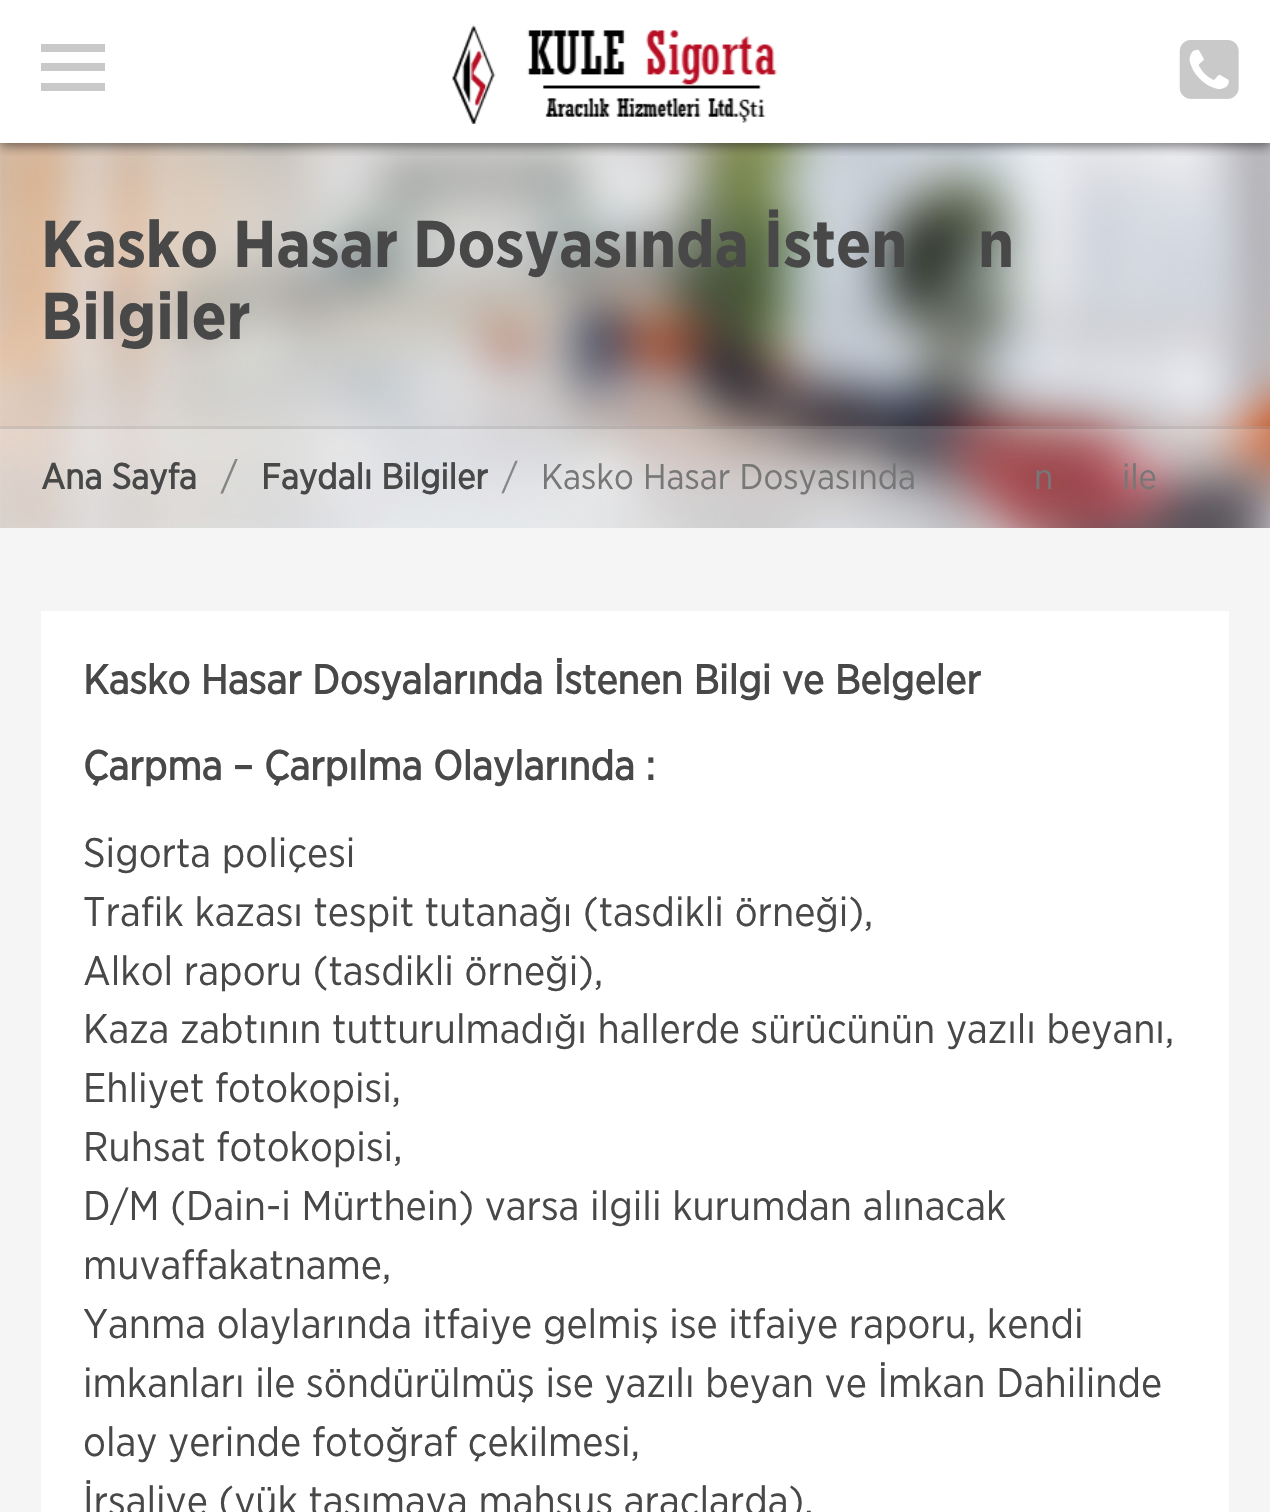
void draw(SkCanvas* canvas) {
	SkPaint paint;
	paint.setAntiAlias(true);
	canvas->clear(0xfff5f5f5);
	paint.setColor(0xffffffff);
	canvas->drawRect(SkRect::MakeXYWH(0, 0, 1270, 143), paint);
	canvas->drawImageRect(SkImages::DeferredFromEncodedData(SkData::MakeFromFileName("img3.png")), SkRect::MakeXYWH(0, 143, 1270, 385), SkSamplingOptions());
	canvas->save();
	canvas->clipRect(SkRect::MakeXYWH(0, 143, 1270, 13));
	paint.setColor(0x80000000);
	paint.setMaskFilter(SkMaskFilter::MakeBlur(kNormal_SkBlurStyle, 5.5));
	canvas->drawRect(SkRect::MakeXYWH(0, 3, 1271, 143), paint);
	paint.setMaskFilter(nullptr);
	canvas->restore();
	canvas->drawImageRect(SkImages::DeferredFromEncodedData(SkData::MakeFromFileName("img1.png")), SkRect::MakeXYWH(452, 24, 325, 100), SkSamplingOptions());
	paint.setColor(0xffc9c9c9);
	canvas->drawRect(SkRect::MakeXYWH(41, 63, 64, 8), paint);
	canvas->drawRect(SkRect::MakeXYWH(41, 44, 64, 8), paint);
	canvas->drawRect(SkRect::MakeXYWH(41, 83, 64, 8), paint);
	canvas->drawImageRect(SkImages::DeferredFromEncodedData(SkData::MakeFromFileName("img2.png")), SkRect::MakeXYWH(1179, 40, 60, 59), SkSamplingOptions());
	SkFont f1(fontMgr->matchFamilyStyle("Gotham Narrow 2", SkFontStyle::Bold()), 66);
	f1.setSubpixel(true);
	paint.setColor(0xff484848);
	canvas->drawString("Kasko Hasar Dosyasında İsten", 41, 267, f1, paint);
	canvas->drawString("n", 978, 267, f1, paint);
	canvas->drawString("Bilgiler", 41, 339, f1, paint);
	paint.setColor(0x33ffffff);
	canvas->drawRect(SkRect::MakeXYWH(0, 426, 1270, 102), paint);
	paint.setColor(0x1a000000);
	canvas->drawRect(SkRect::MakeXYWH(0, 426, 1270, 3), paint);
	SkFont f2(fontMgr->matchFamilyStyle("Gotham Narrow", SkFontStyle::Bold()), 35.75);
	f2.setSubpixel(true);
	paint.setColor(0xff484848);
	canvas->drawString("Ana Sayfa", 41, 489, f2, paint);
	SkFont f3(fontMgr->matchFamilyStyle("Gotham Narrow", SkFontStyle::Normal()), 38);
	f3.setSubpixel(true);
	paint.setColor(0xff858483);
	canvas->drawString("/", 221, 489, f3, paint);
	paint.setColor(0xff484848);
	canvas->drawString("Faydalı Bilgiler", 261, 489, f2, paint);
	SkFont f4(fontMgr->matchFamilyStyle("Gotham Narrow", SkFontStyle::Normal()), 35.75);
	f4.setSubpixel(true);
	paint.setColor(0xff868789);
	canvas->drawString("/", 502, 489, f4, paint);
	paint.setColor(0xff777777);
	canvas->drawString("Kasko Hasar Dosyasında", 541, 489, f4, paint);
	canvas->drawString("n", 1034, 489, f4, paint);
	canvas->drawString("ile", 1122, 489, f4, paint);
	paint.setColor(0xffffffff);
	canvas->drawRect(SkRect::MakeXYWH(41, 611, 1188, 901), paint);
	SkFont f5(fontMgr->matchFamilyStyle("Gotham Narrow", SkFontStyle::Bold()), 41.25);
	f5.setSubpixel(true);
	paint.setColor(0xff484848);
	canvas->drawString("Kasko Hasar Dosyalarında İstenen Bilgi ve Belgeler", 83, 694, f5, paint);
	canvas->drawString("Çarpma – Çarpılma Olaylarında :", 83, 780, f5, paint);
	SkFont f6(fontMgr->matchFamilyStyle("Gotham Narrow", SkFontStyle::Normal()), 41.25);
	f6.setSubpixel(true);
	canvas->drawString("Sigorta poliçesi", 83, 867, f6, paint);
	canvas->drawString("Trafik kazası tespit tutanağı (tasdikli örneği),", 83, 926, f6, paint);
	canvas->drawString("Alkol raporu (tasdikli örneği),", 83, 985, f6, paint);
	canvas->drawString("Kaza zabtının tutturulmadığı hallerde sürücünün yazılı beyanı,", 83, 1043, f6, paint);
	canvas->drawString("Ehliyet fotokopisi,", 83, 1102, f6, paint);
	canvas->drawString("Ruhsat fotokopisi,", 83, 1161, f6, paint);
	canvas->drawString("D/M (Dain-i Mürthein) varsa ilgili kurumdan alınacak", 83, 1220, f6, paint);
	canvas->drawString("muvaffakatname,", 83, 1279, f6, paint);
	canvas->drawString("Yanma olaylarında itfaiye gelmiş ise itfaiye raporu, kendi", 83, 1338, f6, paint);
	canvas->drawString("imkanları ile söndürülmüş ise yazılı beyan ve İmkan Dahilinde", 83, 1397, f6, paint);
	canvas->drawString("olay yerinde fotoğraf çekilmesi,", 83, 1456, f6, paint);
	canvas->drawString("İrsaliye (yük taşımaya mahsus araçlarda),", 83, 1515, f6, paint);
}
